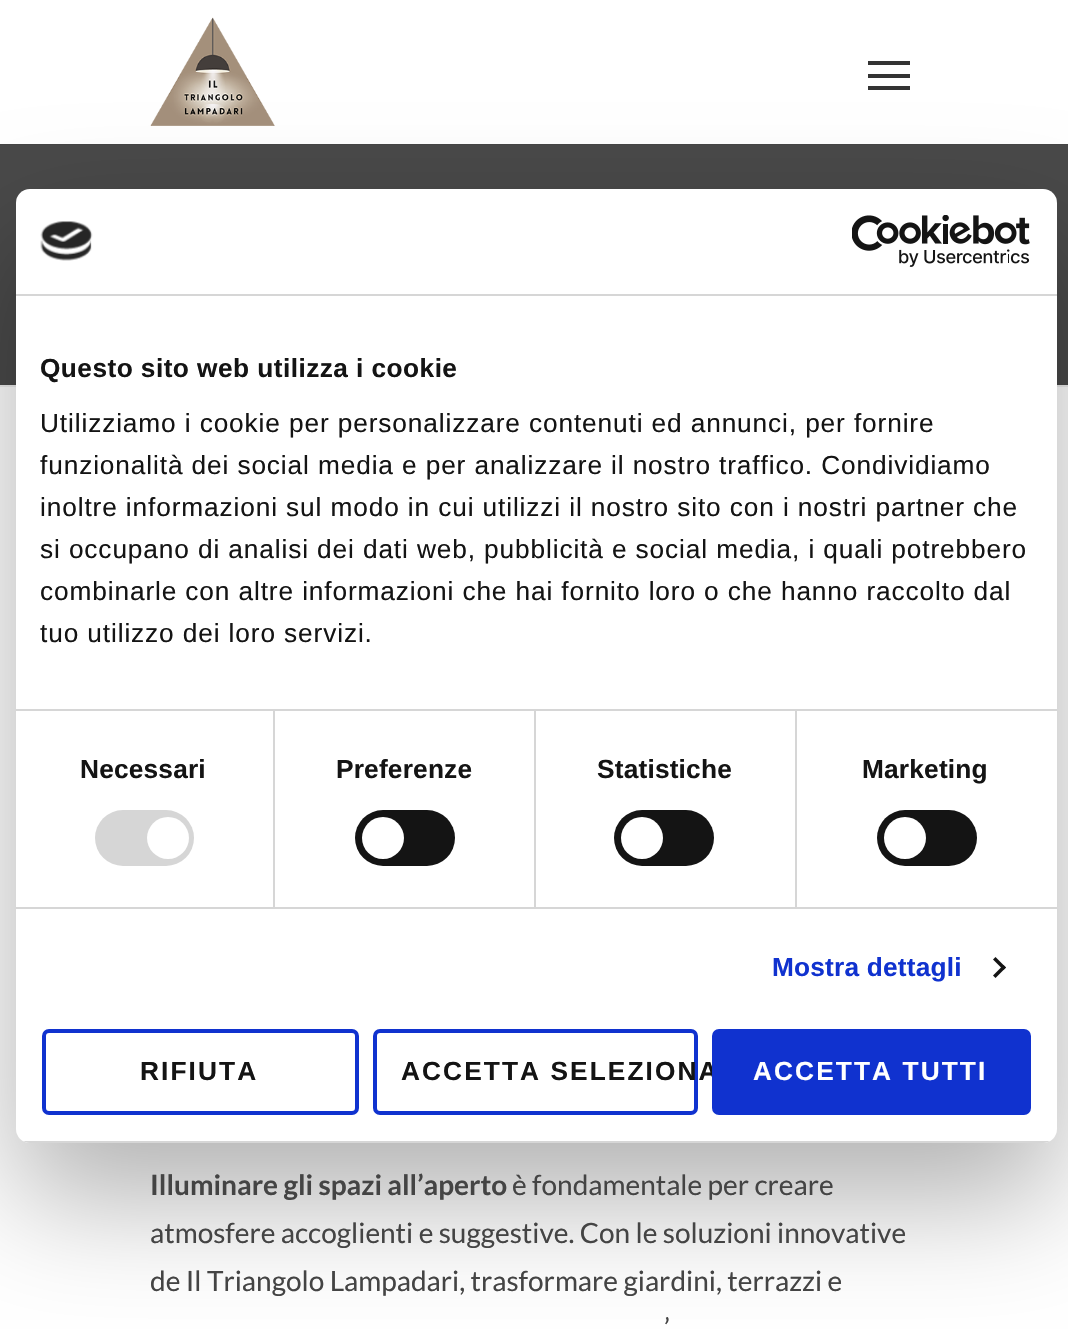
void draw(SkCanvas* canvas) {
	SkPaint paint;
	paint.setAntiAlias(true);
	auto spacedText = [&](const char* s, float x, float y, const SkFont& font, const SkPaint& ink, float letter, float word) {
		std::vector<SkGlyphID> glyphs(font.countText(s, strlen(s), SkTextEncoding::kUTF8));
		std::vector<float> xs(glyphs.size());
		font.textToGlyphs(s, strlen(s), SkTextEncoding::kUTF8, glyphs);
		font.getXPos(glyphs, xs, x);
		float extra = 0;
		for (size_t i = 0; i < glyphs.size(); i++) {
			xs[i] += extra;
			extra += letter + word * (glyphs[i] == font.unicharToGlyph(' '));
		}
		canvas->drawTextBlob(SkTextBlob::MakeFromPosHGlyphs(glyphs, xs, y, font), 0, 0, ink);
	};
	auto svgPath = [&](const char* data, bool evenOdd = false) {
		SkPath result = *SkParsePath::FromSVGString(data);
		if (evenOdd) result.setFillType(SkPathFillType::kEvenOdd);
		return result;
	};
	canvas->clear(0xffffffff);
	paint.setColor(0xff494949);
	canvas->drawRect(SkRect::MakeXYWH(0, 144, 1068, 241), paint);
	paint.setStroke(true);
	paint.setStrokeWidth(2);
	paint.setColor(0x0d000000);
	canvas->drawRect(SkRect::MakeXYWH(-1, -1, 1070, 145), paint);
	paint.setStroke(false);
	paint.setColor(0xffffffff);
	canvas->drawRect(SkRect::MakeXYWH(0, 143, 1068, 1), paint);
	canvas->drawImageRect(SkImages::DeferredFromEncodedData(SkData::MakeFromFileName("img3.png")), SkRect::MakeXYWH(150, 17, 125, 109), SkSamplingOptions());
	paint.setColor(0xff333333);
	canvas->drawRect(SkRect::MakeXYWH(868, 74, 42, 4), paint);
	canvas->drawRect(SkRect::MakeXYWH(868, 86, 42, 4), paint);
	paint.setColor(0xffeeeeee);
	canvas->drawRect(SkRect::MakeXYWH(0, 385, 1068, 2), paint);
	paint.setColor(0x4d000000);
	paint.setMaskFilter(SkMaskFilter::MakeBlur(kNormal_SkBlurStyle, 59.5));
	canvas->drawRoundRect(SkRect::MakeXYWH(16, 245, 1041, 954), 14, 14, paint);
	paint.setMaskFilter(nullptr);
	paint.setColor(0xffffffff);
	canvas->drawRoundRect(SkRect::MakeXYWH(16, 189, 1041, 954), 14, 14, paint);
	paint.setColor(0xffd6d6d6);
	canvas->drawRect(SkRect::MakeXYWH(16, 294, 1041, 2), paint);
	canvas->drawImageRect(SkImages::DeferredFromEncodedData(SkData::MakeFromFileName("img1.png")), SkRect::MakeXYWH(40, 221, 53, 40), SkSamplingOptions());
	canvas->drawImageRect(SkImages::DeferredFromEncodedData(SkData::MakeFromFileName("img2.png")), SkRect::MakeXYWH(852, 215, 178, 52), SkSamplingOptions());
	canvas->drawRect(SkRect::MakeXYWH(16, 709, 1041, 2), paint);
	SkFont f1(fontMgr->matchFamilyStyle("Liberation Sans", SkFontStyle::Bold()), 26.25);
	f1.setSubpixel(true);
	paint.setColor(0xff141414);
	spacedText("Questo sito web utilizza i cookie", 40, 377, f1, paint, 0.45, 0);
	SkFont f2(fontMgr->matchFamilyStyle("Liberation Sans", SkFontStyle::Normal()), 26.25);
	f2.setSubpixel(true);
	spacedText("Utilizziamo i cookie per personalizzare contenuti ed annunci, per fornire", 40, 432, f2, paint, 0.88, 0);
	spacedText("funzionalità dei social media e per analizzare il nostro traffico. Condividiamo", 40, 474, f2, paint, 0.88, 0);
	spacedText("inoltre informazioni sul modo in cui utilizzi il nostro sito con i nostri partner che", 40, 516, f2, paint, 0.88, 0);
	spacedText("si occupano di analisi dei dati web, pubblicità e social media, i quali potrebbero", 40, 558, f2, paint, 0.88, 0);
	spacedText("combinarle con altre informazioni che hai fornito loro o che hanno raccolto dal", 40, 600, f2, paint, 0.88, 0);
	spacedText("tuo utilizzo dei loro servizi.", 40, 642, f2, paint, 0.88, 0);
	paint.setColor(0xffd6d6d6);
	canvas->drawRect(SkRect::MakeXYWH(16, 907, 1041, 2), paint);
	canvas->drawRect(SkRect::MakeXYWH(273, 711, 2, 196), paint);
	paint.setColor(0xff141414);
	spacedText("Necessari", 80, 778, f1, paint, 0.2, 0);
	paint.setColor(0xffd6d6d6);
	canvas->drawRoundRect(SkRect::MakeXYWH(95, 810, 99, 56), 28, 28, paint);
	paint.setColor(0xffffffff);
	canvas->drawCircle(168, 838, 21, paint);
	paint.setColor(0xffd6d6d6);
	canvas->drawRect(SkRect::MakeXYWH(534, 711, 2, 196), paint);
	paint.setColor(0xff141414);
	spacedText("Preferenze", 336, 778, f1, paint, 0.2, 0);
	canvas->drawRoundRect(SkRect::MakeXYWH(355, 810, 100, 56), 28, 28, paint);
	paint.setColor(0xffffffff);
	canvas->drawCircle(383, 838, 21, paint);
	paint.setColor(0xffd6d6d6);
	canvas->drawRect(SkRect::MakeXYWH(795, 711, 2, 196), paint);
	paint.setColor(0xff141414);
	spacedText("Statistiche", 597, 778, f1, paint, 0.2, 0);
	canvas->drawRoundRect(SkRect::MakeXYWH(614, 810, 100, 56), 28, 28, paint);
	paint.setColor(0xffffffff);
	canvas->drawCircle(642, 838, 21, paint);
	paint.setColor(0xff141414);
	spacedText("Marketing", 862, 778, f1, paint, 0.2, 0);
	canvas->drawRoundRect(SkRect::MakeXYWH(877, 810, 100, 56), 28, 28, paint);
	paint.setColor(0xffffffff);
	canvas->drawCircle(905, 838, 21, paint);
	paint.setColor(0xff1032cf);
	spacedText("Mostra dettagli", 772, 976, f1, paint, 0.2, 0);
	paint.setColor(0xff141414);
	canvas->drawPath(svgPath("M995.5 957L1006 967.5L1003.5 970L993 959.5Z"), paint);
	canvas->drawPath(svgPath("M1003.5 965L1006 967.5L995.5 978L993 975.5Z"), paint);
	canvas->save();
	canvas->clipPath(svgPath("M30 189H1043C1050.5 189 1057 195.5 1057 203V1129C1057 1136.5 1050.5 1143 1043 1143H30C22.5 1143 16 1136.5 16 1129V203C16 195.5 22.5 189 30 189Z"), true);
	paint.setColor(0xffd6d6d6);
	canvas->drawRect(SkRect::MakeXYWH(16, 1141, 1041, 2), paint);
	canvas->restore();
	paint.setStroke(true);
	paint.setStrokeWidth(4);
	paint.setColor(0xff1032cf);
	canvas->drawRoundRect(SkRect::MakeXYWH(44, 1031, 313, 82), 5, 5, paint);
	paint.setStroke(false);
	paint.setColor(0xff141414);
	spacedText("RIFIUTA", 140, 1080, f1, paint, 2.1, 0);
	paint.setStroke(true);
	paint.setColor(0xff1032cf);
	canvas->drawRoundRect(SkRect::MakeXYWH(375, 1031, 321, 82), 5, 5, paint);
	paint.setStroke(false);
	paint.setColor(0xff141414);
	spacedText("ACCETTA SELEZIONA", 401, 1080, f1, paint, 2.1, 0);
	paint.setColor(0xff1032cf);
	canvas->drawRoundRect(SkRect::MakeXYWH(714, 1031, 315, 82), 5, 5, paint);
	paint.setStroke(true);
	canvas->drawRoundRect(SkRect::MakeXYWH(714, 1031, 315, 82), 5, 5, paint);
	paint.setStroke(false);
	paint.setColor(0xffffffff);
	spacedText("ACCETTA TUTTI", 753, 1080, f1, paint, 2.1, 0);
	paint.setColor(0xff333333);
	canvas->drawRect(SkRect::MakeXYWH(868, 61, 42, 4), paint);
	SkFont f3(fontMgr->matchFamilyStyle("Lato", SkFontStyle::Bold()), 28);
	f3.setSubpixel(true);
	paint.setColor(0xff444444);
	canvas->drawString("Illuminare gli spazi all’aperto", 150, 1195, f3, paint);
	SkFont f4(fontMgr->matchFamilyStyle("Lato", SkFontStyle::Normal()), 28);
	f4.setSubpixel(true);
	canvas->drawString("è fondamentale per creare", 512, 1195, f4, paint);
	canvas->drawString("atmosfere accoglienti e suggestive. Con le soluzioni innovative", 150, 1243, f4, paint);
	canvas->drawString("de Il Triangolo Lampadari, trasformare giardini, terrazzi e", 150, 1291, f4, paint);
	canvas->drawString("’", 664, 1338, f4, paint);
}
